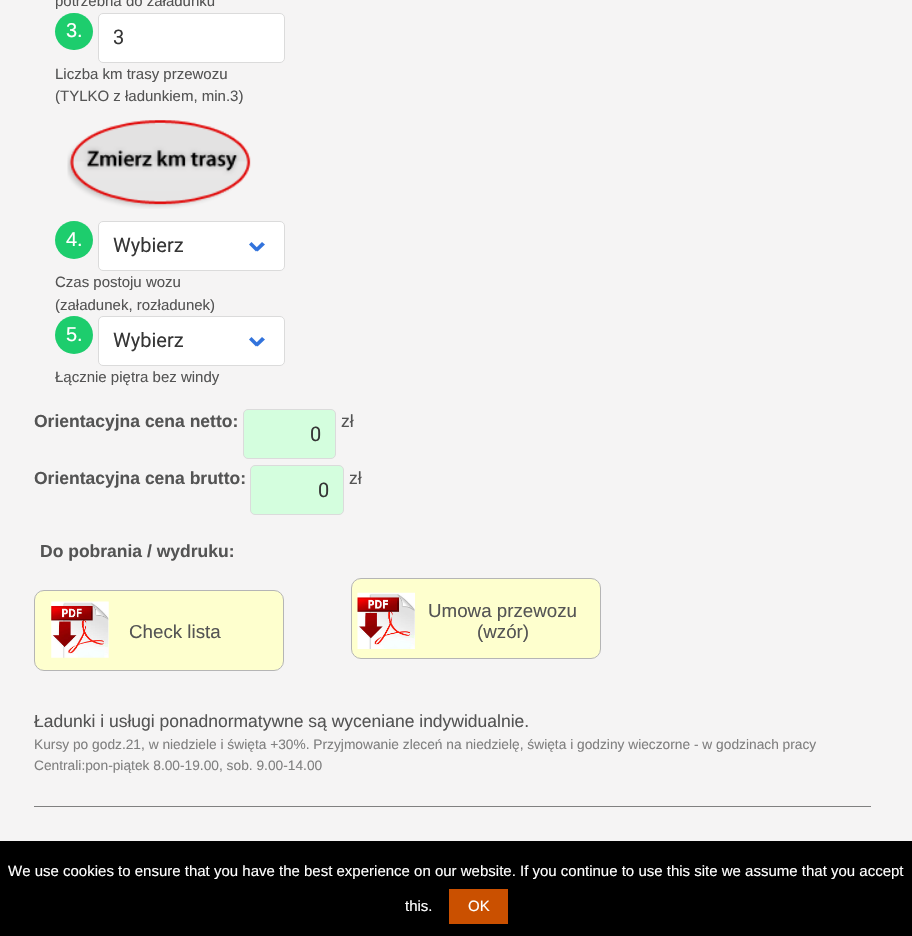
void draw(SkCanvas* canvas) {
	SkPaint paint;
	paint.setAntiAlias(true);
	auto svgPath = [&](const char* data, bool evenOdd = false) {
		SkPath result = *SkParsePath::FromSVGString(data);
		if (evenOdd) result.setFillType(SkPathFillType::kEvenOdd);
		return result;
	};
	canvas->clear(0xfff5f4f4);
	SkFont f1(fontMgr->matchFamilyStyle("Liberation Sans", SkFontStyle::Normal()), 15);
	f1.setSubpixel(true);
	paint.setColor(0xff545454);
	canvas->drawString("potrzebna do załadunku", 55, 6, f1, paint);
	paint.setColor(0xff1dcd6d);
	canvas->drawRoundRect(SkRect::MakeXYWH(55, 13, 38, 37), 18.5, 18.5, paint);
	SkFont f2(fontMgr->matchFamilyStyle("Liberation Sans", SkFontStyle::Normal()), 20);
	f2.setSubpixel(true);
	paint.setColor(0xffffffff);
	canvas->drawString("3.", 66, 37, f2, paint);
	canvas->drawRoundRect(SkRect::MakeXYWH(98.5, 13.5, 186, 49), 4.5, 4.5, paint);
	paint.setStroke(true);
	paint.setStrokeWidth(1);
	paint.setColor(0xffdbdbdb);
	canvas->drawRoundRect(SkRect::MakeXYWH(98.5, 13.5, 186, 49), 4.5, 4.5, paint);
	SkFont f3(fontMgr->matchFamilyStyle("Roboto", SkFontStyle::Normal()), 20);
	f3.setSubpixel(true);
	paint.setStroke(false);
	paint.setColor(0xff363636);
	canvas->drawString("3", 113, 44, f3, paint);
	paint.setColor(0xff545454);
	canvas->drawString("Liczba km trasy przewozu", 55, 79, f1, paint);
	canvas->drawString("(TYLKO z ładunkiem, min.3)", 55, 101, f1, paint);
	canvas->drawImageRect(SkImages::DeferredFromEncodedData(SkData::MakeFromFileName("img1.png")), SkRect::MakeXYWH(67, 120, 184, 89), SkSamplingOptions());
	paint.setColor(0xff1dcd6d);
	canvas->drawCircle(74, 240, 19, paint);
	paint.setColor(0xffffffff);
	canvas->drawString("4.", 66, 246, f2, paint);
	canvas->drawRoundRect(SkRect::MakeXYWH(98.5, 221.5, 186, 49), 4.5, 4.5, paint);
	paint.setStroke(true);
	paint.setColor(0xffdbdbdb);
	canvas->drawRoundRect(SkRect::MakeXYWH(98.5, 221.5, 186, 49), 4.5, 4.5, paint);
	paint.setStroke(false);
	paint.setColor(0xff363636);
	canvas->drawString("Wybierz", 113, 252, f3, paint);
	paint.setColor(0xff3273dc);
	canvas->drawPath(svgPath("M255 249L262 242L265 244.5L257.5 251.5Z"), paint);
	canvas->drawPath(svgPath("M249 244.5L251.5 242L258.5 249L256 251.5Z"), paint);
	paint.setColor(0xff545454);
	canvas->drawString("Czas postoju wozu", 55, 287, f1, paint);
	canvas->drawString("(załadunek, rozładunek)", 55, 310, f1, paint);
	paint.setColor(0xff1dcd6d);
	canvas->drawCircle(74, 335, 19, paint);
	paint.setColor(0xffffffff);
	canvas->drawString("5.", 66, 341, f2, paint);
	canvas->drawRoundRect(SkRect::MakeXYWH(98.5, 316.5, 186, 49), 4.5, 4.5, paint);
	paint.setStroke(true);
	paint.setColor(0xffdbdbdb);
	canvas->drawRoundRect(SkRect::MakeXYWH(98.5, 316.5, 186, 49), 4.5, 4.5, paint);
	paint.setStroke(false);
	paint.setColor(0xff363636);
	canvas->drawString("Wybierz", 113, 347, f3, paint);
	paint.setColor(0xff3273dc);
	canvas->drawPath(svgPath("M255 344L262 337L265 339.5L257.5 346.5Z"), paint);
	canvas->drawPath(svgPath("M249 339.5L251.5 337L258.5 344L256 346.5Z"), paint);
	paint.setColor(0xff545454);
	canvas->drawString("Łącznie piętra bez windy", 55, 382, f1, paint);
	SkFont f4(fontMgr->matchFamilyStyle("Liberation Sans", SkFontStyle::Bold()), 17.5);
	f4.setSubpixel(true);
	canvas->drawString("Orientacyjna cena netto:", 34, 427, f4, paint);
	SkFont f5(fontMgr->matchFamilyStyle("Liberation Sans", SkFontStyle::Normal()), 17.5);
	f5.setSubpixel(true);
	canvas->drawString("zł", 341, 427, f5, paint);
	paint.setColor(0xffd4fede);
	canvas->drawRoundRect(SkRect::MakeXYWH(243.5, 409.5, 92, 49), 4.5, 4.5, paint);
	paint.setStroke(true);
	paint.setColor(0xffdbdbdb);
	canvas->drawRoundRect(SkRect::MakeXYWH(243.5, 409.5, 92, 49), 4.5, 4.5, paint);
	paint.setStroke(false);
	paint.setColor(0xff363636);
	canvas->drawString("0", 310, 441, f3, paint);
	paint.setColor(0xff545454);
	canvas->drawString("Orientacyjna cena brutto:", 34, 484, f4, paint);
	canvas->drawString("zł", 349, 484, f5, paint);
	paint.setColor(0xffd4fede);
	canvas->drawRoundRect(SkRect::MakeXYWH(250.5, 465.5, 93, 49), 4.5, 4.5, paint);
	paint.setStroke(true);
	paint.setColor(0xffdbdbdb);
	canvas->drawRoundRect(SkRect::MakeXYWH(250.5, 465.5, 93, 49), 4.5, 4.5, paint);
	paint.setStroke(false);
	paint.setColor(0xff363636);
	canvas->drawString("0", 318, 497, f3, paint);
	paint.setColor(0xff545454);
	canvas->drawString("Do pobrania / wydruku:", 40, 557, f4, paint);
	paint.setColor(0xfffeffce);
	canvas->drawRoundRect(SkRect::MakeXYWH(34.5, 590.5, 249, 80), 9.5, 9.5, paint);
	paint.setStroke(true);
	paint.setColor(0xffb5b5b5);
	canvas->drawRoundRect(SkRect::MakeXYWH(34.5, 590.5, 249, 80), 9.5, 9.5, paint);
	canvas->drawImageRect(SkImages::DeferredFromEncodedData(SkData::MakeFromFileName("img2.png")), SkRect::MakeXYWH(51, 601, 58, 57), SkSamplingOptions());
	SkFont f6(fontMgr->matchFamilyStyle("Liberation Sans", SkFontStyle::Normal()), 18.75);
	f6.setSubpixel(true);
	paint.setStroke(false);
	paint.setColor(0xff545454);
	canvas->drawString("Check lista", 129, 638, f6, paint);
	paint.setColor(0xfffeffce);
	canvas->drawRoundRect(SkRect::MakeXYWH(351.5, 578.5, 249, 80), 9.5, 9.5, paint);
	paint.setStroke(true);
	paint.setColor(0xffb5b5b5);
	canvas->drawRoundRect(SkRect::MakeXYWH(351.5, 578.5, 249, 80), 9.5, 9.5, paint);
	canvas->drawImageRect(SkImages::DeferredFromEncodedData(SkData::MakeFromFileName("img3.png")), SkRect::MakeXYWH(357, 592, 58, 57), SkSamplingOptions());
	paint.setStroke(false);
	paint.setColor(0xff545454);
	canvas->drawString("Umowa przewozu", 428, 617, f6, paint);
	canvas->drawString("(wzór)", 477, 638, f6, paint);
	canvas->drawString("Ładunki i usługi ponadnormatywne są wyceniane indywidualnie.", 34, 727, f5, paint);
	SkFont f7(fontMgr->matchFamilyStyle("Liberation Sans", SkFontStyle::Normal()), 13.75);
	f7.setSubpixel(true);
	paint.setColor(0xff808080);
	canvas->drawString("Kursy po godz.21, w niedziele i święta +30%. Przyjmowanie zleceń na niedzielę, święta i godziny wieczorne - w godzinach pracy", 34, 749, f7, paint);
	canvas->drawString("Centrali:pon-piątek 8.00-19.00, sob. 9.00-14.00", 34, 770, f7, paint);
	canvas->drawRect(SkRect::MakeXYWH(34, 806, 837, 1), paint);
	paint.setColor(0xff000000);
	canvas->drawRect(SkRect::MakeXYWH(0, 841, 912, 95), paint);
	paint.setColor(0xffffffff);
	canvas->drawString("We use cookies to ensure that you have the best experience on our website. If you continue to use this site we assume that you accept", 8, 876, f1, paint);
	canvas->drawString("this.", 405, 911, f1, paint);
	paint.setColor(0xffca5000);
	canvas->drawRect(SkRect::MakeXYWH(449, 889, 59, 35), paint);
	paint.setColor(0xffffffff);
	canvas->drawString("OK", 468, 911, f1, paint);
}
